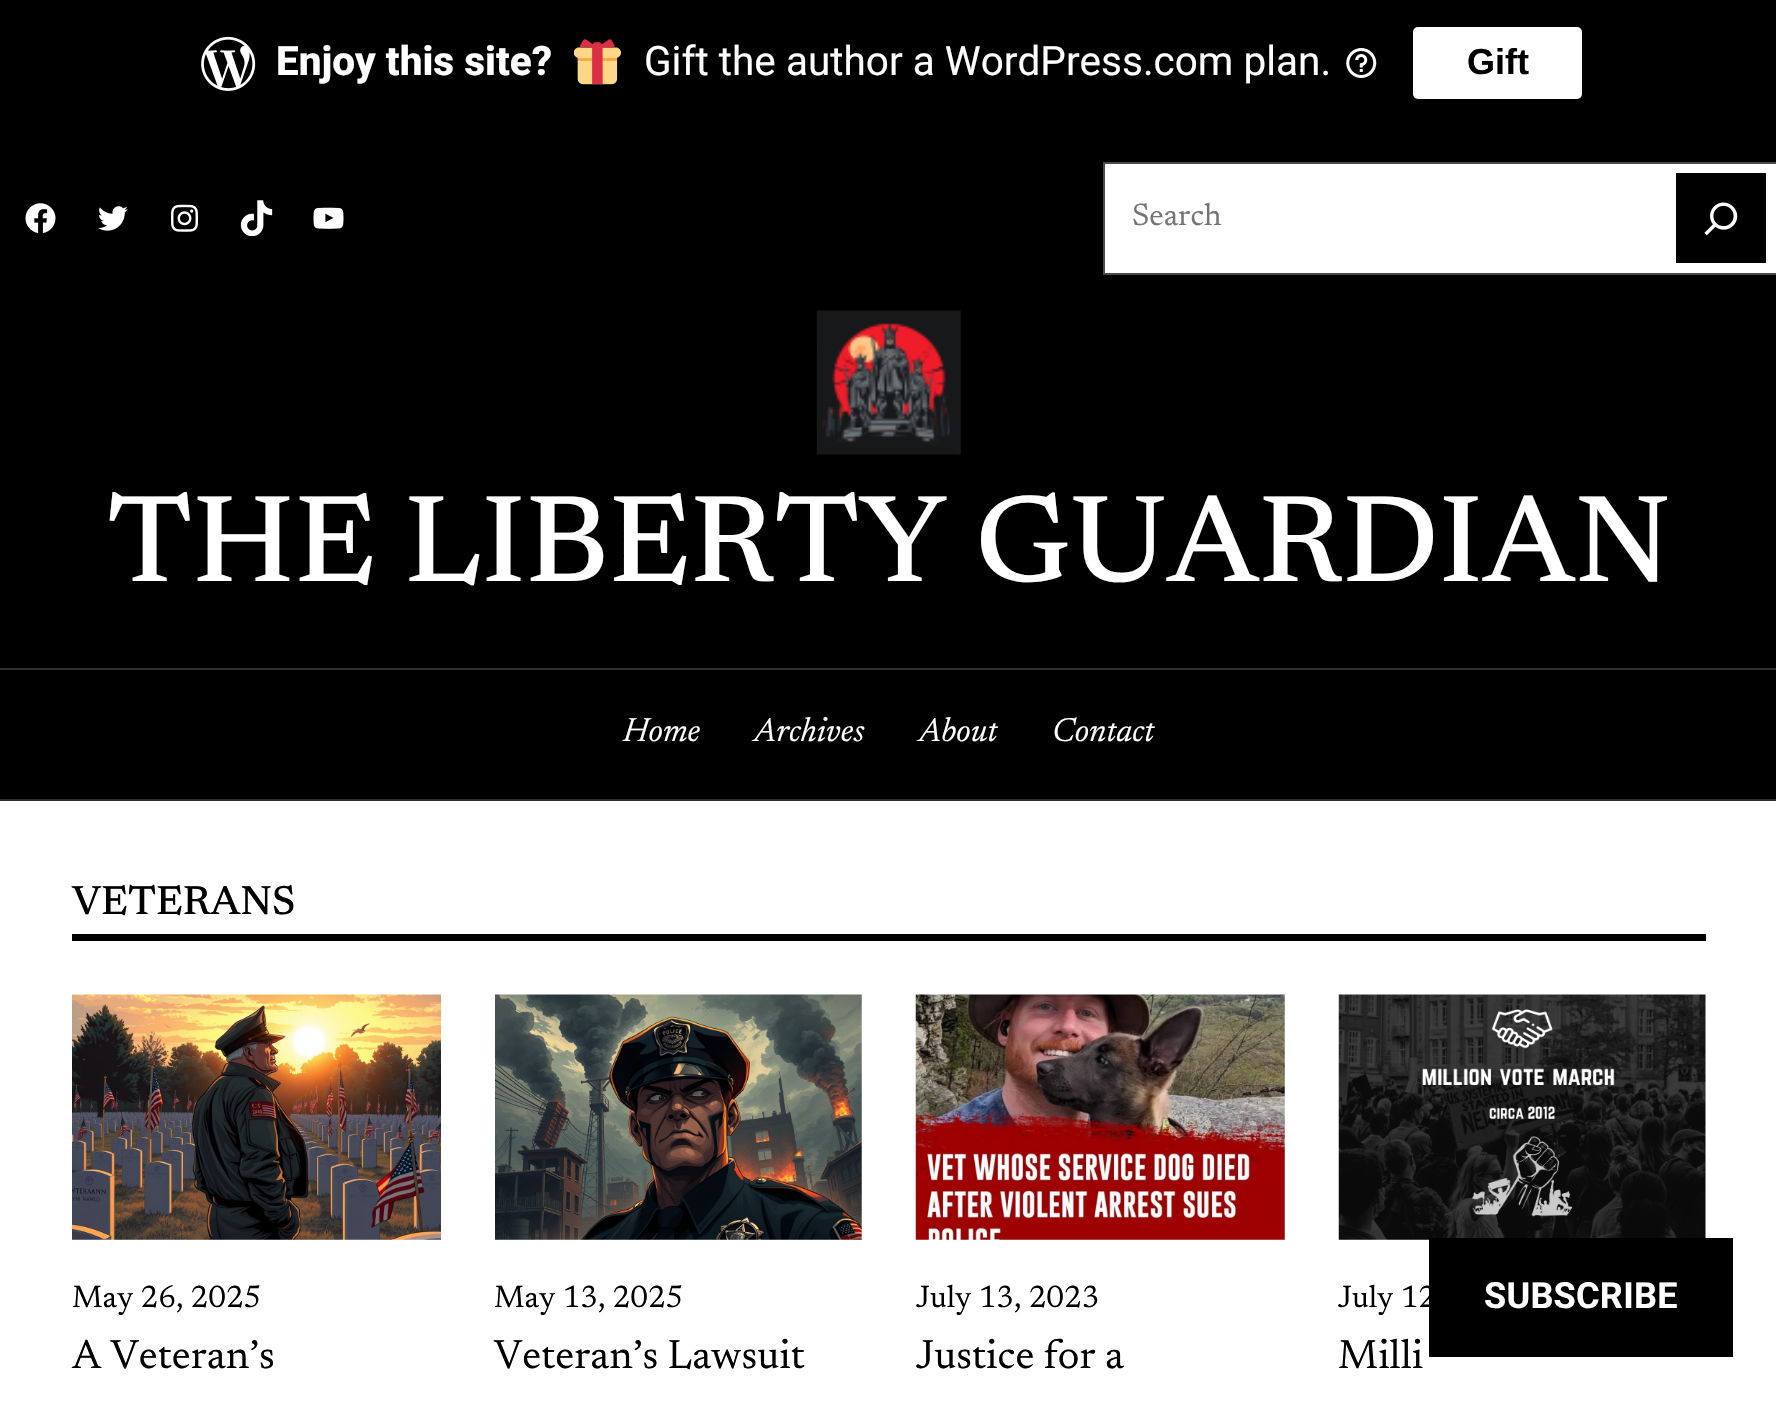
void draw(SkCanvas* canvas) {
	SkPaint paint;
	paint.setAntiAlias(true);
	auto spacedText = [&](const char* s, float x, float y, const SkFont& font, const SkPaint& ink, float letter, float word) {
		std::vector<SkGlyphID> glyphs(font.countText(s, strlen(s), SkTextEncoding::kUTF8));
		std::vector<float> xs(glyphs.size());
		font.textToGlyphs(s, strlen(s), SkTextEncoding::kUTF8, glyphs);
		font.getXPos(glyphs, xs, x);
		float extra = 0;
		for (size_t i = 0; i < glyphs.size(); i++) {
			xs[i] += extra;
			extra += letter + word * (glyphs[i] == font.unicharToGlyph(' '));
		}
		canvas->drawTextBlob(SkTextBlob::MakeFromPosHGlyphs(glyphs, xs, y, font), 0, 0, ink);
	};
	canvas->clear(0xffffffff);
	paint.setColor(0xff000000);
	canvas->drawRect(SkRect::MakeXYWH(0, 0, 1776, 799), paint);
	canvas->drawImageRect(SkImages::DeferredFromEncodedData(SkData::MakeFromFileName("img1.png")), SkRect::MakeXYWH(201, 36, 55, 55), SkSamplingOptions());
	SkFont f1(fontMgr->matchFamilyStyle("Roboto", SkFontStyle(800, SkFontStyle::kNormal_Width, SkFontStyle::kUpright_Slant)), 40.5);
	f1.setSubpixel(true);
	paint.setColor(0xffffffff);
	canvas->drawString("Enjoy this site?", 276, 75, f1, paint);
	canvas->drawImageRect(SkImages::DeferredFromEncodedData(SkData::MakeFromFileName("img2.png")), SkRect::MakeXYWH(574, 39, 47, 46), SkSamplingOptions());
	SkFont f2(fontMgr->matchFamilyStyle("Roboto", SkFontStyle::Normal()), 40.5);
	f2.setSubpixel(true);
	canvas->drawString("Gift the author a WordPress.com plan.", 644, 75, f2, paint);
	canvas->drawImageRect(SkImages::DeferredFromEncodedData(SkData::MakeFromFileName("img3.png")), SkRect::MakeXYWH(1346, 48, 31, 30), SkSamplingOptions());
	canvas->drawRoundRect(SkRect::MakeXYWH(1413, 27, 169, 72), 5, 5, paint);
	SkFont f3(fontMgr->matchFamilyStyle("Liberation Sans", SkFontStyle::Bold()), 36);
	f3.setSubpixel(true);
	paint.setColor(0xff000000);
	canvas->drawString("Gift", 1467, 74, f3, paint);
	canvas->drawImageRect(SkImages::DeferredFromEncodedData(SkData::MakeFromFileName("img4.png")), SkRect::MakeXYWH(25, 203, 31, 30), SkSamplingOptions());
	canvas->drawImageRect(SkImages::DeferredFromEncodedData(SkData::MakeFromFileName("img5.png")), SkRect::MakeXYWH(98, 206, 30, 25), SkSamplingOptions());
	canvas->drawImageRect(SkImages::DeferredFromEncodedData(SkData::MakeFromFileName("img6.png")), SkRect::MakeXYWH(171, 204, 27, 28), SkSamplingOptions());
	canvas->drawImageRect(SkImages::DeferredFromEncodedData(SkData::MakeFromFileName("img7.png")), SkRect::MakeXYWH(240, 200, 33, 36), SkSamplingOptions());
	canvas->drawImageRect(SkImages::DeferredFromEncodedData(SkData::MakeFromFileName("img8.png")), SkRect::MakeXYWH(313, 207, 31, 22), SkSamplingOptions());
	paint.setColor(0xffffffff);
	canvas->drawRect(SkRect::MakeXYWH(1104, 163, 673, 111), paint);
	paint.setStroke(true);
	paint.setStrokeWidth(2);
	paint.setColor(0xff4a4a4a);
	canvas->drawRect(SkRect::MakeXYWH(1104, 163, 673, 111), paint);
	SkFont f4(fontMgr->matchFamilyStyle("Newsreader", SkFontStyle::Normal()), 31.25);
	f4.setSubpixel(true);
	paint.setStroke(false);
	paint.setColor(0xff757575);
	canvas->drawString("Search", 1132, 225, f4, paint);
	paint.setColor(0xff000000);
	canvas->drawRect(SkRect::MakeXYWH(1676, 173, 90, 90), paint);
	canvas->drawImageRect(SkImages::DeferredFromEncodedData(SkData::MakeFromFileName("img9.png")), SkRect::MakeXYWH(1704, 202, 34, 34), SkSamplingOptions());
	canvas->drawImageRect(SkImages::DeferredFromEncodedData(SkData::MakeFromFileName("img10.png")), SkRect::MakeXYWH(816, 310, 145, 145), SkSamplingOptions());
	SkFont f5(fontMgr->matchFamilyStyle("Newsreader", SkFontStyle(500, SkFontStyle::kNormal_Width, SkFontStyle::kUpright_Slant)), 124.9);
	f5.setSubpixel(true);
	paint.setColor(0xffffffff);
	canvas->drawString("THE LIBERTY GUARDIAN", 107, 581, f5, paint);
	paint.setColor(0xff2e2e2e);
	canvas->drawRect(SkRect::MakeXYWH(0, 668, 1776, 2), paint);
	canvas->drawRect(SkRect::MakeXYWH(0, 799, 1776, 2), paint);
	SkFont f6(fontMgr->matchFamilyStyle("Newsreader", SkFontStyle::Italic()), 34);
	f6.setSubpixel(true);
	paint.setColor(0xffffffff);
	canvas->drawString("Home", 623, 741, f6, paint);
	canvas->drawString("Archives", 754, 741, f6, paint);
	canvas->drawString("About", 919, 741, f6, paint);
	canvas->drawString("Contact", 1052, 741, f6, paint);
	paint.setColor(0xff000000);
	canvas->drawRect(SkRect::MakeXYWH(72, 934, 1634, 7), paint);
	SkFont f7(fontMgr->matchFamilyStyle("Newsreader", SkFontStyle(500, SkFontStyle::kNormal_Width, SkFontStyle::kUpright_Slant)), 41);
	f7.setSubpixel(true);
	canvas->drawString("VETERANS", 72, 914, f7, paint);
	canvas->drawImageRect(SkImages::DeferredFromEncodedData(SkData::MakeFromFileName("img11.png")), SkRect::MakeXYWH(72, 994, 369, 246), SkSamplingOptions());
	canvas->drawString("May 26, 2025", 72, 1307, f4, paint);
	SkFont f8(fontMgr->matchFamilyStyle("Newsreader", SkFontStyle::Normal()), 41);
	f8.setSubpixel(true);
	canvas->drawString("A Veteran’s", 72, 1368, f8, paint);
	canvas->drawImageRect(SkImages::DeferredFromEncodedData(SkData::MakeFromFileName("img12.png")), SkRect::MakeXYWH(495, 994, 367, 246), SkSamplingOptions());
	canvas->drawString("May 13, 2025", 494, 1307, f4, paint);
	canvas->drawString("Veteran’s Lawsuit", 494, 1368, f8, paint);
	canvas->drawImageRect(SkImages::DeferredFromEncodedData(SkData::MakeFromFileName("img13.png")), SkRect::MakeXYWH(915, 994, 370, 246), SkSamplingOptions());
	canvas->drawString("July 13, 2023", 916, 1307, f4, paint);
	canvas->drawString("Justice for a", 916, 1368, f8, paint);
	canvas->drawImageRect(SkImages::DeferredFromEncodedData(SkData::MakeFromFileName("img14.png")), SkRect::MakeXYWH(1338, 994, 368, 246), SkSamplingOptions());
	canvas->drawString("July 12", 1338, 1307, f4, paint);
	canvas->drawString("Milli", 1338, 1368, f8, paint);
	canvas->drawRect(SkRect::MakeXYWH(1429, 1238, 304, 119), paint);
	SkFont f9(fontMgr->matchFamilyStyle("Roboto", SkFontStyle::Bold()), 36);
	f9.setSubpixel(true);
	paint.setColor(0xffffffff);
	spacedText("SUBSCRIBE", 1484, 1308, f9, paint, 0.25, 0);
}
